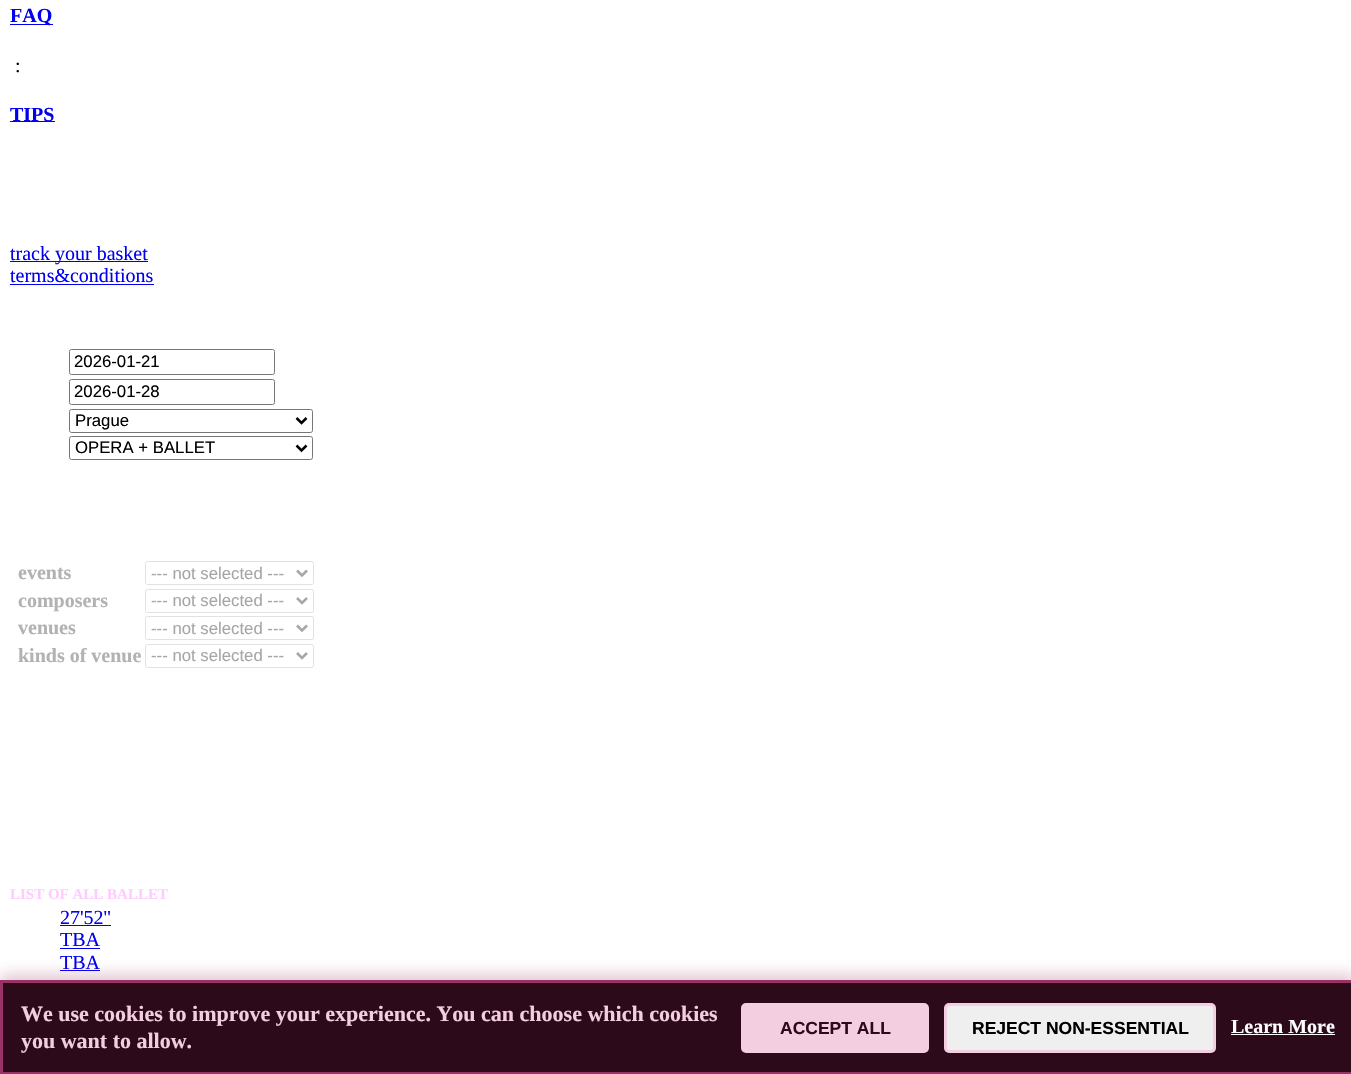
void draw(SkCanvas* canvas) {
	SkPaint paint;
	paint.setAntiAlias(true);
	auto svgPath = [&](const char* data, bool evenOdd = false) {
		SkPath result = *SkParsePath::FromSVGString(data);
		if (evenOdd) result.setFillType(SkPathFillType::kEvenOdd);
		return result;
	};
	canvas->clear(0xffffffff);
	paint.setColor(0xff0000ee);
	canvas->drawRect(SkRect::MakeXYWH(10, 24, 43, 1), paint);
	SkFont f1(fontMgr->matchFamilyStyle("Liberation Serif", SkFontStyle::Bold()), 20);
	f1.setSubpixel(true);
	canvas->drawString("FAQ", 10, 22, f1, paint);
	SkFont f2(fontMgr->matchFamilyStyle("Liberation Serif", SkFontStyle::Normal()), 20);
	f2.setSubpixel(true);
	paint.setColor(0xff000000);
	canvas->drawString(":", 15, 72, f2, paint);
	paint.setColor(0xff0000ee);
	canvas->drawRect(SkRect::MakeXYWH(10, 121, 45, 1), paint);
	canvas->drawString("TIPS", 10, 121, f1, paint);
	canvas->drawRect(SkRect::MakeXYWH(10, 261, 138, 1), paint);
	canvas->drawString("track your basket", 10, 260, f2, paint);
	canvas->drawString("terms&conditions", 10, 282, f2, paint);
	canvas->drawRect(SkRect::MakeXYWH(10, 284, 144, 1), paint);
	paint.setStroke(true);
	paint.setStrokeWidth(1);
	paint.setColor(0xff767676);
	canvas->drawRoundRect(SkRect::MakeXYWH(69.5, 349.5, 205, 25), 2, 2, paint);
	SkFont f3(fontMgr->matchFamilyStyle("Liberation Sans", SkFontStyle::Normal()), 16.75);
	f3.setSubpixel(true);
	paint.setStroke(false);
	paint.setColor(0xff000000);
	canvas->drawString("2026-01-21", 74, 367, f3, paint);
	paint.setStroke(true);
	paint.setColor(0xff767676);
	canvas->drawRoundRect(SkRect::MakeXYWH(69.5, 379.5, 205, 25), 2, 2, paint);
	paint.setStroke(false);
	paint.setColor(0xff000000);
	canvas->drawString("2026-01-28", 74, 397, f3, paint);
	paint.setStroke(true);
	paint.setColor(0xff767676);
	canvas->drawRoundRect(SkRect::MakeXYWH(69.5, 409.5, 243, 23), 2, 2, paint);
	paint.setStrokeWidth(2.5);
	paint.setColor(0xff000000);
	canvas->drawPath(svgPath("M296.5 418L301.5 423L306.5 418"), paint);
	paint.setStroke(false);
	canvas->drawString("Prague", 75, 426, f3, paint);
	paint.setStroke(true);
	paint.setStrokeWidth(1);
	paint.setColor(0xff767676);
	canvas->drawRoundRect(SkRect::MakeXYWH(69.5, 436.5, 243, 23), 2, 2, paint);
	paint.setStrokeWidth(2.5);
	paint.setColor(0xff000000);
	canvas->drawPath(svgPath("M296.5 445.5L301.5 450.5L306.5 445.5"), paint);
	paint.setStroke(false);
	canvas->drawString("OPERA + BALLET", 75, 453, f3, paint);
	paint.setColor(0xffb2b2b2);
	canvas->drawString("events", 18, 579, f1, paint);
	paint.setStroke(true);
	paint.setStrokeWidth(1);
	paint.setColor(0xffe2e2e2);
	canvas->drawRoundRect(SkRect::MakeXYWH(145.5, 561.5, 168, 23), 2, 2, paint);
	paint.setStrokeWidth(2.5);
	paint.setColor(0xffa6a6a6);
	canvas->drawPath(svgPath("M297 570.5L302 575.5L307 570.5"), paint);
	paint.setStroke(false);
	canvas->drawString("--- not selected ---", 151, 579, f3, paint);
	paint.setColor(0xffb2b2b2);
	canvas->drawString("composers", 18, 607, f1, paint);
	paint.setStroke(true);
	paint.setStrokeWidth(1);
	paint.setColor(0xffe2e2e2);
	canvas->drawRoundRect(SkRect::MakeXYWH(145.5, 589.5, 168, 23), 2, 2, paint);
	paint.setStrokeWidth(2.5);
	paint.setColor(0xffa6a6a6);
	canvas->drawPath(svgPath("M297 598L302 603L307 598"), paint);
	paint.setStroke(false);
	canvas->drawString("--- not selected ---", 151, 606, f3, paint);
	paint.setColor(0xffb2b2b2);
	canvas->drawString("venues", 18, 634, f1, paint);
	paint.setStroke(true);
	paint.setStrokeWidth(1);
	paint.setColor(0xffe2e2e2);
	canvas->drawRoundRect(SkRect::MakeXYWH(145.5, 616.5, 168, 23), 2, 2, paint);
	paint.setStrokeWidth(2.5);
	paint.setColor(0xffa6a6a6);
	canvas->drawPath(svgPath("M297 625.5L302 630.5L307 625.5"), paint);
	paint.setStroke(false);
	canvas->drawString("--- not selected ---", 151, 634, f3, paint);
	paint.setColor(0xffb2b2b2);
	canvas->drawString("kinds of venue", 18, 662, f1, paint);
	paint.setStroke(true);
	paint.setStrokeWidth(1);
	paint.setColor(0xffe2e2e2);
	canvas->drawRoundRect(SkRect::MakeXYWH(145.5, 644.5, 168, 23), 2, 2, paint);
	paint.setStrokeWidth(2.5);
	paint.setColor(0xffa6a6a6);
	canvas->drawPath(svgPath("M297 653L302 658L307 653"), paint);
	paint.setStroke(false);
	canvas->drawString("--- not selected ---", 151, 661, f3, paint);
	SkFont f4(fontMgr->matchFamilyStyle("Liberation Serif", SkFontStyle::Bold()), 15);
	f4.setSubpixel(true);
	paint.setColor(0xffffccff);
	canvas->drawString("LIST OF ALL BALLET", 10, 899, f4, paint);
	paint.setColor(0xff0000ee);
	canvas->drawString("27'52''", 60, 924, f2, paint);
	canvas->drawRect(SkRect::MakeXYWH(60, 925, 51, 1), paint);
	canvas->drawString("TBA", 60, 946, f2, paint);
	canvas->drawRect(SkRect::MakeXYWH(60, 948, 40, 1), paint);
	canvas->drawString("TBA", 60, 969, f2, paint);
	canvas->drawRect(SkRect::MakeXYWH(60, 970, 40, 1), paint);
	paint.setColor(0x4d993366);
	paint.setMaskFilter(SkMaskFilter::MakeBlur(kNormal_SkBlurStyle, 7.5));
	canvas->drawRect(SkRect::MakeXYWH(0, 975, 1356, 95), paint);
	paint.setMaskFilter(nullptr);
	paint.setColor(0xff2d0a1a);
	canvas->drawRect(SkRect::MakeXYWH(1.5, 981.5, 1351, 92), paint);
	paint.setStroke(true);
	paint.setStrokeWidth(3);
	paint.setColor(0xff993366);
	canvas->drawRect(SkRect::MakeXYWH(1.5, 981.5, 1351, 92), paint);
	SkFont f5(fontMgr->matchFamilyStyle("Liberation Serif", SkFontStyle::Bold()), 22);
	f5.setSubpixel(true);
	paint.setStroke(false);
	paint.setColor(0xfff3cde0);
	canvas->drawString("We use cookies to improve your experience. You can choose which cookies", 21, 1021, f5, paint);
	canvas->drawString("you want to allow.", 21, 1048, f5, paint);
	canvas->drawRoundRect(SkRect::MakeXYWH(742.5, 1004.5, 185, 47), 3.5, 3.5, paint);
	paint.setStroke(true);
	canvas->drawRoundRect(SkRect::MakeXYWH(742.5, 1004.5, 185, 47), 3.5, 3.5, paint);
	SkFont f6(fontMgr->matchFamilyStyle("Liberation Sans", SkFontStyle::Bold()), 17.5);
	f6.setSubpixel(true);
	paint.setStroke(false);
	paint.setColor(0xff2d0a1a);
	canvas->drawString("ACCEPT ALL", 780, 1034, f6, paint);
	paint.setColor(0xffefefef);
	canvas->drawRoundRect(SkRect::MakeXYWH(945.5, 1004.5, 269, 47), 3.5, 3.5, paint);
	paint.setStroke(true);
	paint.setColor(0xfff3cde0);
	canvas->drawRoundRect(SkRect::MakeXYWH(945.5, 1004.5, 269, 47), 3.5, 3.5, paint);
	paint.setStroke(false);
	paint.setColor(0xff000000);
	canvas->drawString("REJECT NON-ESSENTIAL", 972, 1034, f6, paint);
	paint.setColor(0xffffffff);
	canvas->drawString("Learn More", 1231, 1033, f1, paint);
	canvas->drawRect(SkRect::MakeXYWH(1231, 1034, 104, 1), paint);
}
